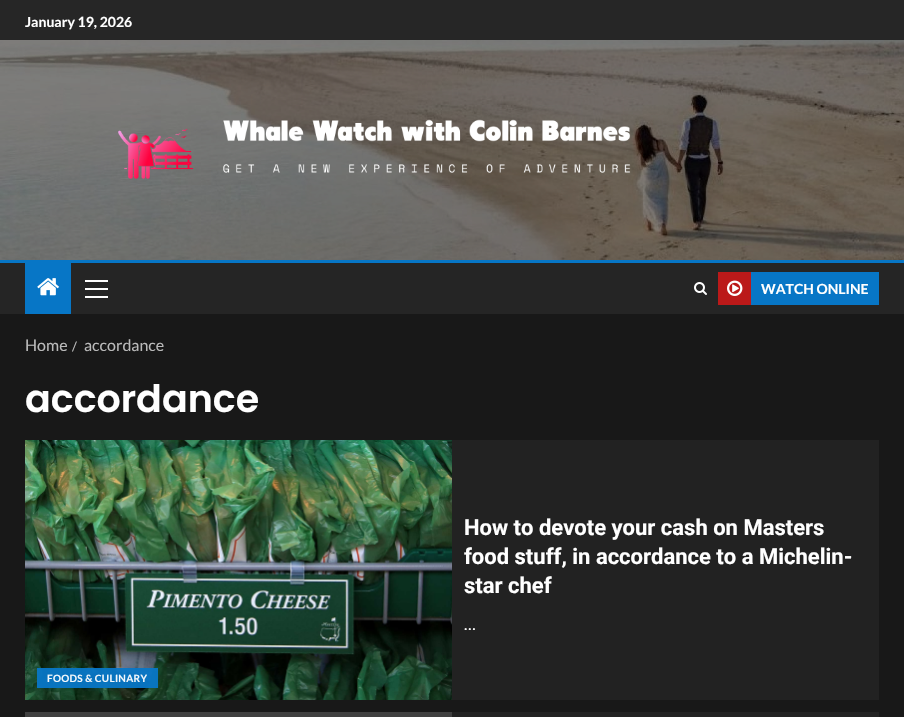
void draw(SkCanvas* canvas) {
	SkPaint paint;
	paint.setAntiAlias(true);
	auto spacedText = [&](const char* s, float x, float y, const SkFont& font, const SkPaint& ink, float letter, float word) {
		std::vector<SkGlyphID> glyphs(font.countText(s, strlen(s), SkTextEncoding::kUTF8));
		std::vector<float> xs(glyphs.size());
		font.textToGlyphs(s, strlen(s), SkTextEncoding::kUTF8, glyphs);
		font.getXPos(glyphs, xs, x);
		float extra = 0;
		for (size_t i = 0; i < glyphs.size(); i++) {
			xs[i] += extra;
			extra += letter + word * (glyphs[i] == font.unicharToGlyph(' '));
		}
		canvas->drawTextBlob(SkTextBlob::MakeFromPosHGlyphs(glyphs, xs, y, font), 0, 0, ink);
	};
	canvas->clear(0xff181818);
	paint.setColor(0xff262626);
	canvas->drawRect(SkRect::MakeXYWH(0, 0, 904, 40), paint);
	SkFont f1(fontMgr->matchFamilyStyle("Lato", SkFontStyle::Bold()), 14);
	f1.setSubpixel(true);
	paint.setColor(0xffffffff);
	canvas->drawString("January 19, 2026", 25, 27, f1, paint);
	canvas->drawImageRect(SkImages::DeferredFromEncodedData(SkData::MakeFromFileName("img1.png")), SkRect::MakeXYWH(0, 40, 904, 220), SkSamplingOptions());
	canvas->drawImageRect(SkImages::DeferredFromEncodedData(SkData::MakeFromFileName("img2.png")), SkRect::MakeXYWH(118, 119, 513, 60), SkSamplingOptions());
	paint.setColor(0xff252525);
	canvas->drawRect(SkRect::MakeXYWH(0, 263, 904, 51), paint);
	paint.setColor(0xff0776c6);
	canvas->drawRect(SkRect::MakeXYWH(0, 260, 904, 3), paint);
	canvas->drawRect(SkRect::MakeXYWH(25, 263, 46, 51), paint);
	canvas->drawImageRect(SkImages::DeferredFromEncodedData(SkData::MakeFromFileName("img3.png")), SkRect::MakeXYWH(37, 278, 22, 18), SkSamplingOptions());
	paint.setColor(0xffffffff);
	canvas->drawRect(SkRect::MakeXYWH(85, 288, 23, 2), paint);
	canvas->drawRect(SkRect::MakeXYWH(85, 280, 23, 2), paint);
	canvas->drawRect(SkRect::MakeXYWH(85, 296, 23, 2), paint);
	canvas->drawImageRect(SkImages::DeferredFromEncodedData(SkData::MakeFromFileName("img4.png")), SkRect::MakeXYWH(694, 282, 13, 13), SkSamplingOptions());
	paint.setColor(0xffbb1919);
	canvas->drawRect(SkRect::MakeXYWH(718, 272, 33, 33), paint);
	canvas->drawImageRect(SkImages::DeferredFromEncodedData(SkData::MakeFromFileName("img5.png")), SkRect::MakeXYWH(727, 280, 16, 16), SkSamplingOptions());
	paint.setColor(0xff0776c6);
	canvas->drawRect(SkRect::MakeXYWH(751, 272, 128, 33), paint);
	paint.setColor(0xffffffff);
	canvas->drawString("WATCH ONLINE", 761, 294, f1, paint);
	SkFont f2(fontMgr->matchFamilyStyle("Lato", SkFontStyle::Normal()), 16);
	f2.setSubpixel(true);
	paint.setColor(0xffbababa);
	canvas->drawString("Home", 25, 351, f2, paint);
	SkFont f3(fontMgr->matchFamilyStyle("Lato", SkFontStyle::Normal()), 13);
	f3.setSubpixel(true);
	canvas->drawString("/", 72, 351, f3, paint);
	canvas->drawString("accordance", 84, 351, f2, paint);
	SkFont f4(fontMgr->matchFamilyStyle("Poppins", SkFontStyle(600, SkFontStyle::kNormal_Width, SkFontStyle::kUpright_Slant)), 38);
	f4.setSubpixel(true);
	paint.setColor(0xffffffff);
	canvas->drawString("accordance", 25, 412, f4, paint);
	paint.setColor(0xff222222);
	canvas->drawRect(SkRect::MakeXYWH(452, 440, 427, 260), paint);
	SkFont f5(fontMgr->matchFamilyStyle("Roboto", SkFontStyle::Bold()), 22);
	f5.setSubpixel(true);
	paint.setColor(0xffffffff);
	canvas->drawString("How to devote your cash on Masters", 464, 535, f5, paint);
	canvas->drawString("food stuff, in accordance to a Michelin-", 464, 564, f5, paint);
	canvas->drawString("star chef", 464, 593, f5, paint);
	canvas->drawString("…", 464, 630, f2, paint);
	canvas->drawImageRect(SkImages::DeferredFromEncodedData(SkData::MakeFromFileName("img6.png")), SkRect::MakeXYWH(25, 440, 427, 260), SkSamplingOptions());
	paint.setColor(0xf20776c6);
	canvas->drawRect(SkRect::MakeXYWH(37, 668, 121, 20), paint);
	SkFont f6(fontMgr->matchFamilyStyle("Lato", SkFontStyle::Bold()), 10);
	f6.setSubpixel(true);
	paint.setColor(0xfff3f8fc);
	spacedText("FOODS & CULINARY", 47, 682, f6, paint, 0.3, 0);
	paint.setColor(0xff222222);
	canvas->drawRect(SkRect::MakeXYWH(452, 712, 427, 5), paint);
	paint.setColor(0xff404040);
	canvas->drawRect(SkRect::MakeXYWH(25, 712, 427, 5), paint);
}
